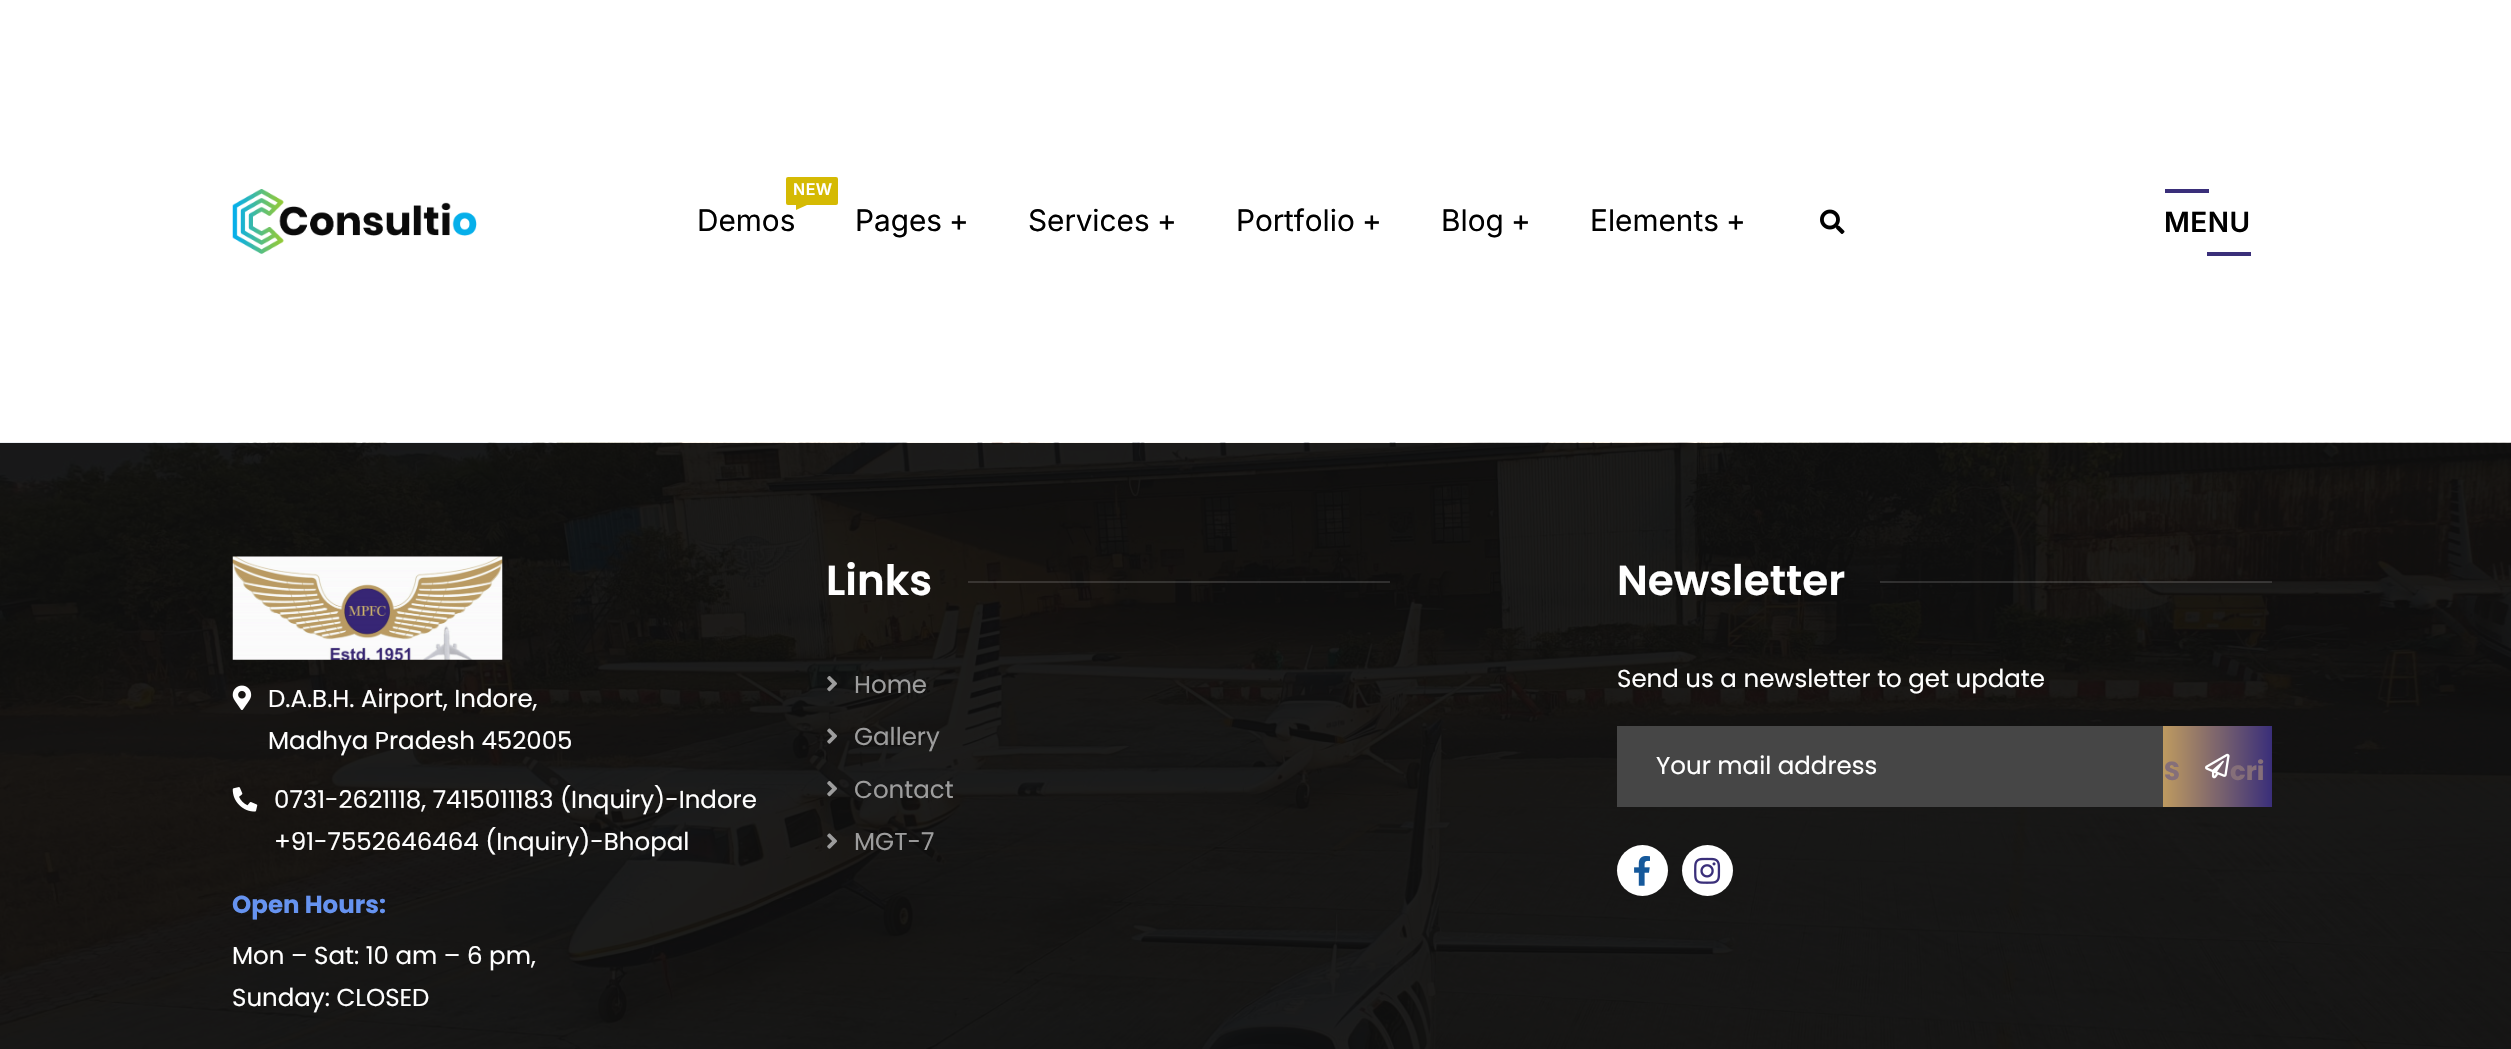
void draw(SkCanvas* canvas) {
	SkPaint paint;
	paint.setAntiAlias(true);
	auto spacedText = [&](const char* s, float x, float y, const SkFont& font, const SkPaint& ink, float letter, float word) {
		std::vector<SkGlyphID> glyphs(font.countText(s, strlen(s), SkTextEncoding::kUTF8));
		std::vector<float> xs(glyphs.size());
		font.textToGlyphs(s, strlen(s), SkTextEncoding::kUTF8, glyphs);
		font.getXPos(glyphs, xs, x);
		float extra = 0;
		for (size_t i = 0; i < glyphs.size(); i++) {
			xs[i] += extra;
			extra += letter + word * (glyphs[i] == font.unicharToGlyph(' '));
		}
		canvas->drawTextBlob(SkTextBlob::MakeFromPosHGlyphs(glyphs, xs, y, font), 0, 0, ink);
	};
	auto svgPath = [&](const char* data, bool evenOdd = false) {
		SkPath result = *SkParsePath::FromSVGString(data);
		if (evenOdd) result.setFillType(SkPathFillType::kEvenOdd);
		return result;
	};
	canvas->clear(0xffffffff);
	canvas->drawImageRect(SkImages::DeferredFromEncodedData(SkData::MakeFromFileName("img1.png")), SkRect::MakeXYWH(232, 189, 245, 65), SkSamplingOptions());
	paint.setColor(0xffd5ba03);
	canvas->drawRoundRect(SkRect::MakeXYWH(786, 177, 52, 28), 2, 2, paint);
	SkFont f1(fontMgr->matchFamilyStyle("Inter", SkFontStyle(600, SkFontStyle::kNormal_Width, SkFontStyle::kUpright_Slant)), 16);
	f1.setSubpixel(true);
	paint.setColor(0xffffffff);
	spacedText("NEW", 793, 195, f1, paint, 0.5, 0);
	paint.setColor(0xffd5ba03);
	canvas->drawPath(svgPath("M796 205H807L796 210Z"), paint);
	SkFont f2(fontMgr->matchFamilyStyle("Inter", SkFontStyle::Normal()), 29.75);
	f2.setSubpixel(true);
	paint.setColor(0xff000000);
	canvas->drawString("Demos", 697, 231, f2, paint);
	canvas->drawString("Pages", 855, 231, f2, paint);
	canvas->drawString("+", 949, 231, f2, paint);
	canvas->drawString("Services", 1028, 231, f2, paint);
	canvas->drawString("+", 1157, 231, f2, paint);
	canvas->drawString("Portfolio", 1236, 231, f2, paint);
	canvas->drawString("+", 1362, 231, f2, paint);
	canvas->drawString("Blog", 1441, 231, f2, paint);
	canvas->drawString("+", 1511, 231, f2, paint);
	canvas->drawString("Elements", 1590, 231, f2, paint);
	canvas->drawString("+", 1726, 231, f2, paint);
	canvas->drawImageRect(SkImages::DeferredFromEncodedData(SkData::MakeFromFileName("img2.png")), SkRect::MakeXYWH(1820, 209, 25, 25), SkSamplingOptions());
	paint.setColor(0xff3a2f7a);
	canvas->drawRect(SkRect::MakeXYWH(2165, 189, 44, 4), paint);
	SkFont f3(fontMgr->matchFamilyStyle("Inter", SkFontStyle(600, SkFontStyle::kNormal_Width, SkFontStyle::kUpright_Slant)), 28);
	f3.setSubpixel(true);
	paint.setColor(0xff000000);
	spacedText("MENU", 2164, 232, f3, paint, 0.5, 0);
	paint.setColor(0xff3a2f7a);
	canvas->drawRect(SkRect::MakeXYWH(2207, 252, 44, 4), paint);
	canvas->drawImageRect(SkImages::DeferredFromEncodedData(SkData::MakeFromFileName("img3.png")), SkRect::MakeXYWH(0, 442, 2511, 607), SkSamplingOptions());
	canvas->drawImageRect(SkImages::DeferredFromEncodedData(SkData::MakeFromFileName("img4.png")), SkRect::MakeXYWH(232, 556, 271, 104), SkSamplingOptions());
	canvas->drawImageRect(SkImages::DeferredFromEncodedData(SkData::MakeFromFileName("img5.png")), SkRect::MakeXYWH(232, 685, 20, 25), SkSamplingOptions());
	SkFont f4(fontMgr->matchFamilyStyle("Poppins", SkFontStyle::Normal()), 24.5);
	f4.setSubpixel(true);
	paint.setColor(0xffffffff);
	canvas->drawString("D.A.B.H. Airport, Indore,", 268, 707, f4, paint);
	canvas->drawString("Madhya Pradesh 452005", 268, 749, f4, paint);
	canvas->drawImageRect(SkImages::DeferredFromEncodedData(SkData::MakeFromFileName("img6.png")), SkRect::MakeXYWH(232, 787, 26, 25), SkSamplingOptions());
	canvas->drawString("0731-2621118, 7415011183 (Inquiry)-Indore", 274, 808, f4, paint);
	canvas->drawString("+91-7552646464 (Inquiry)-Bhopal", 274, 850, f4, paint);
	SkFont f5(fontMgr->matchFamilyStyle("Poppins", SkFontStyle::Bold()), 24.5);
	f5.setSubpixel(true);
	paint.setColor(0xff6693f0);
	canvas->drawString("Open Hours:", 232, 913, f5, paint);
	paint.setColor(0xffffffff);
	canvas->drawString("Mon – Sat: 10 am – 6 pm,", 232, 964, f4, paint);
	canvas->drawString("Sunday: CLOSED", 232, 1006, f4, paint);
	SkFont f6(fontMgr->matchFamilyStyle("Poppins", SkFontStyle(600, SkFontStyle::kNormal_Width, SkFontStyle::kUpright_Slant)), 42);
	f6.setSubpixel(true);
	canvas->drawString("Links", 826, 595, f6, paint);
	paint.setColor(0x26e9eaee);
	canvas->drawRect(SkRect::MakeXYWH(968, 581, 422, 2), paint);
	canvas->drawImageRect(SkImages::DeferredFromEncodedData(SkData::MakeFromFileName("img7.png")), SkRect::MakeXYWH(827, 676, 10, 16), SkSamplingOptions());
	paint.setColor(0xff9d9d9d);
	canvas->drawString("Home", 854, 693, f4, paint);
	canvas->drawImageRect(SkImages::DeferredFromEncodedData(SkData::MakeFromFileName("img8.png")), SkRect::MakeXYWH(827, 728, 10, 16), SkSamplingOptions());
	canvas->drawString("Gallery", 854, 745, f4, paint);
	canvas->drawImageRect(SkImages::DeferredFromEncodedData(SkData::MakeFromFileName("img9.png")), SkRect::MakeXYWH(827, 781, 10, 16), SkSamplingOptions());
	canvas->drawString("Contact", 854, 798, f4, paint);
	canvas->drawImageRect(SkImages::DeferredFromEncodedData(SkData::MakeFromFileName("img10.png")), SkRect::MakeXYWH(827, 833, 10, 16), SkSamplingOptions());
	canvas->drawString("MGT-7", 854, 850, f4, paint);
	paint.setColor(0xffffffff);
	canvas->drawString("Newsletter", 1617, 595, f6, paint);
	paint.setColor(0x26e9eaee);
	canvas->drawRect(SkRect::MakeXYWH(1880, 581, 392, 2), paint);
	paint.setColor(0xffffffff);
	canvas->drawString("Send us a newsletter to get update", 1617, 687, f4, paint);
	paint.setColor(0xff464646);
	canvas->drawRect(SkRect::MakeXYWH(1617, 726, 546, 81), paint);
	paint.setColor(0xffffffff);
	canvas->drawString("Your mail address", 1656, 774, f4, paint);
	{
		const SkColor colors[] = {0xffbe9a60, 0xff3a2f7a};
		const float stops[] = {0, 1};
		const SkPoint ends[] = {{2163, 767}, {2272, 767}};
		paint.setShader(SkGradientShader::MakeLinear(ends, colors, stops, 2, SkTileMode::kClamp));
		paint.setAlpha(255);
	}
	canvas->drawRect(SkRect::MakeXYWH(2163, 726, 109, 81), paint);
	canvas->drawImageRect(SkImages::DeferredFromEncodedData(SkData::MakeFromFileName("img11.png")), SkRect::MakeXYWH(2205, 753, 25, 26), SkSamplingOptions());
	SkFont f7(fontMgr->matchFamilyStyle("Poppins", SkFontStyle::Bold()), 26);
	f7.setSubpixel(true);
	paint.setShader(nullptr);
	paint.setColor(0xff856f79);
	canvas->drawString("S", 2164, 780, f7, paint);
	canvas->drawString("cri", 2230, 780, f7, paint);
	paint.setColor(0xffffffff);
	canvas->drawCircle(1642.5, 870.5, 25.5, paint);
	canvas->drawImageRect(SkImages::DeferredFromEncodedData(SkData::MakeFromFileName("img12.png")), SkRect::MakeXYWH(1634, 856, 16, 30), SkSamplingOptions());
	canvas->drawCircle(1707.5, 870.5, 25.5, paint);
	canvas->drawImageRect(SkImages::DeferredFromEncodedData(SkData::MakeFromFileName("img13.png")), SkRect::MakeXYWH(1694, 857, 27, 27), SkSamplingOptions());
}
